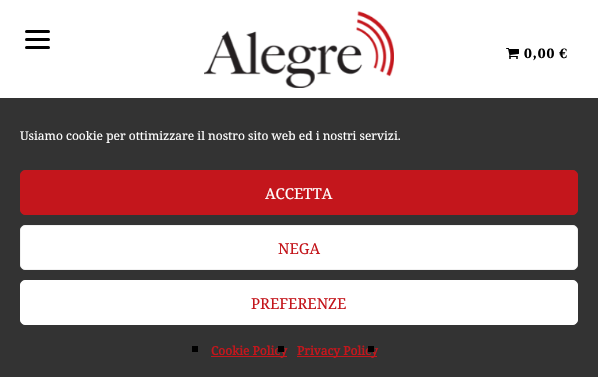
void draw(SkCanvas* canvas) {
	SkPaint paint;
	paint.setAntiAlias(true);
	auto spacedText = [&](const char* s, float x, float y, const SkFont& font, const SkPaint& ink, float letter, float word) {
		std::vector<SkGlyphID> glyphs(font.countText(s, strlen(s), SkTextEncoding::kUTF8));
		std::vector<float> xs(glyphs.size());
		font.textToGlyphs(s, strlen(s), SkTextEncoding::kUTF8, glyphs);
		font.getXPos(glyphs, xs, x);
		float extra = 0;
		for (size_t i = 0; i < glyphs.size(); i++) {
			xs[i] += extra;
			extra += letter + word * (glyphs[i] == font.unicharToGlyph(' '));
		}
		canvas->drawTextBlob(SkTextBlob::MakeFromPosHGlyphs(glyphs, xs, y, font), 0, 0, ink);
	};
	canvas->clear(0xff333333);
	paint.setColor(0xffffffff);
	canvas->drawRect(SkRect::MakeXYWH(0, 0, 598, 98), paint);
	paint.setColor(0xff000000);
	canvas->drawRoundRect(SkRect::MakeXYWH(25, 38, 25, 3), 1.5, 1.5, paint);
	canvas->drawRoundRect(SkRect::MakeXYWH(25, 30, 25, 3), 1.5, 1.5, paint);
	canvas->drawRoundRect(SkRect::MakeXYWH(25, 46, 25, 3), 1.5, 1.5, paint);
	canvas->drawImageRect(SkImages::DeferredFromEncodedData(SkData::MakeFromFileName("img1.png")), SkRect::MakeXYWH(204, 11, 190, 77), SkSamplingOptions());
	canvas->drawImageRect(SkImages::DeferredFromEncodedData(SkData::MakeFromFileName("img2.png")), SkRect::MakeXYWH(506, 48, 13, 11), SkSamplingOptions());
	SkFont f1(fontMgr->matchFamilyStyle("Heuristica", SkFontStyle::Bold()), 14);
	f1.setSubpixel(true);
	spacedText("0,00 €", 524, 58, f1, paint, 1, 0);
	SkFont f2(fontMgr->matchFamilyStyle("Noto Serif", SkFontStyle::Normal()), 12);
	f2.setSubpixel(true);
	paint.setColor(0xffffffff);
	canvas->drawString("Usiamo cookie per ottimizzare il nostro sito web ed i nostri servizi.", 20, 140, f2, paint);
	paint.setColor(0xffc4161c);
	canvas->drawRoundRect(SkRect::MakeXYWH(20.5, 170.5, 557, 44), 4.5, 4.5, paint);
	paint.setStroke(true);
	paint.setStrokeWidth(1);
	canvas->drawRoundRect(SkRect::MakeXYWH(20.5, 170.5, 557, 44), 4.5, 4.5, paint);
	SkFont f3(fontMgr->matchFamilyStyle("Noto Serif", SkFontStyle::Normal()), 15);
	f3.setSubpixel(true);
	paint.setStroke(false);
	paint.setColor(0xffffffff);
	canvas->drawString("ACCETTA", 265, 199, f3, paint);
	canvas->drawRoundRect(SkRect::MakeXYWH(20.5, 225.5, 557, 44), 4.5, 4.5, paint);
	paint.setStroke(true);
	paint.setColor(0xfff1f1f1);
	canvas->drawRoundRect(SkRect::MakeXYWH(20.5, 225.5, 557, 44), 4.5, 4.5, paint);
	paint.setStroke(false);
	paint.setColor(0xffc4161c);
	canvas->drawString("NEGA", 278, 254, f3, paint);
	paint.setColor(0xffffffff);
	canvas->drawRoundRect(SkRect::MakeXYWH(20.5, 280.5, 557, 44), 4.5, 4.5, paint);
	paint.setStroke(true);
	canvas->drawRoundRect(SkRect::MakeXYWH(20.5, 280.5, 557, 44), 4.5, 4.5, paint);
	paint.setStroke(false);
	paint.setColor(0xffc4161c);
	canvas->drawString("PREFERENZE", 251, 309, f3, paint);
	paint.setColor(0xff000000);
	canvas->drawRect(SkRect::MakeXYWH(192, 346, 6, 6), paint);
	paint.setColor(0xffc4161c);
	canvas->drawRect(SkRect::MakeXYWH(211, 356, 76, 1), paint);
	SkFont f4(fontMgr->matchFamilyStyle("Noto Serif", SkFontStyle::Bold()), 12);
	f4.setSubpixel(true);
	canvas->drawString("Cookie Policy", 211, 355, f4, paint);
	paint.setColor(0xff000000);
	canvas->drawRect(SkRect::MakeXYWH(278, 346, 6, 6), paint);
	paint.setColor(0xffc4161c);
	canvas->drawRect(SkRect::MakeXYWH(297, 356, 80, 1), paint);
	canvas->drawString("Privacy Policy", 297, 355, f4, paint);
	paint.setColor(0xff000000);
	canvas->drawRect(SkRect::MakeXYWH(368, 346, 6, 6), paint);
}
